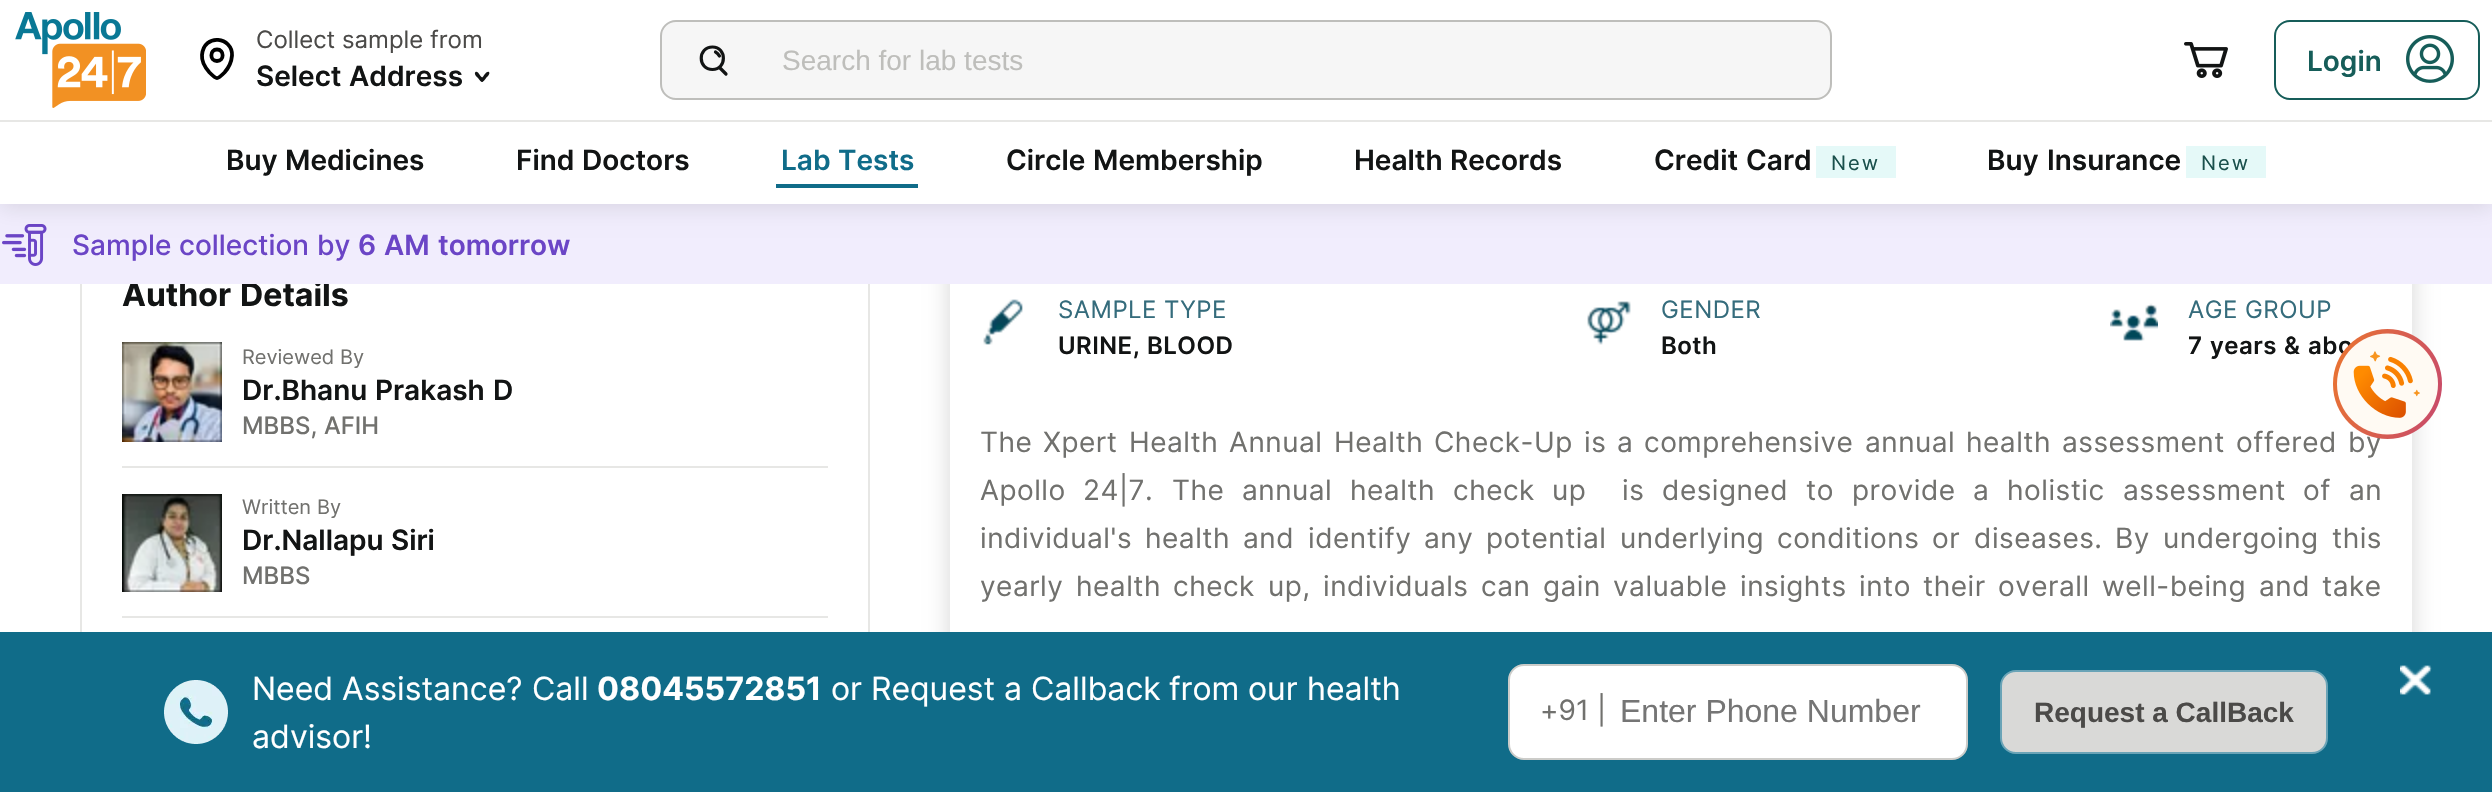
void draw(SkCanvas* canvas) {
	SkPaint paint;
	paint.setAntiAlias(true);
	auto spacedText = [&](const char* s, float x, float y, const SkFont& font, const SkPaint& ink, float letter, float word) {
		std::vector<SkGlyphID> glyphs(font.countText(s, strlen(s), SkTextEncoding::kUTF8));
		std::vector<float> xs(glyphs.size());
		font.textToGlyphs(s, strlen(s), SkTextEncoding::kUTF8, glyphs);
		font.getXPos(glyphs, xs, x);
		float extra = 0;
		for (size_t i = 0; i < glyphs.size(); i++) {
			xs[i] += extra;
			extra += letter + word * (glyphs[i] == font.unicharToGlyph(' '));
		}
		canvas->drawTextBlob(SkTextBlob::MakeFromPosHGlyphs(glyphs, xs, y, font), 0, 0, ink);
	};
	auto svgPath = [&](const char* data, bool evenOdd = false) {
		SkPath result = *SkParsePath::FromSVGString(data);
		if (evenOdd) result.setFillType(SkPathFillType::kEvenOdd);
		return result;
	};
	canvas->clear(0xffffffff);
	paint.setStroke(true);
	paint.setStrokeWidth(2);
	paint.setColor(0xffe7e7e5);
	canvas->drawRect(SkRect::MakeXYWH(81, 229, 788, 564), paint);
	SkFont f1(fontMgr->matchFamilyStyle("Inter", SkFontStyle::Bold()), 32);
	f1.setSubpixel(true);
	paint.setStroke(false);
	paint.setColor(0xff121414);
	canvas->drawString("Author", 122, 306, f1, paint);
	canvas->drawString("Details", 240, 306, f1, paint);
	paint.setColor(0x29000000);
	paint.setMaskFilter(SkMaskFilter::MakeBlur(kNormal_SkBlurStyle, 12));
	canvas->drawRoundRect(SkRect::MakeXYWH(950, 140, 1462, 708), 20, 20, paint);
	paint.setMaskFilter(nullptr);
	paint.setColor(0xfff1edfd);
	canvas->drawRect(SkRect::MakeXYWH(0, 204, 2492, 80), paint);
	canvas->drawImageRect(SkImages::DeferredFromEncodedData(SkData::MakeFromFileName("img4.png")), SkRect::MakeXYWH(2, 224, 45, 42), SkSamplingOptions());
	paint.setColor(0x1a000000);
	paint.setMaskFilter(SkMaskFilter::MakeBlur(kNormal_SkBlurStyle, 10));
	canvas->drawRect(SkRect::MakeXYWH(0, 4, 2492, 204), paint);
	paint.setMaskFilter(nullptr);
	paint.setColor(0xffffffff);
	canvas->drawRect(SkRect::MakeXYWH(0, 0, 2492, 204), paint);
	canvas->drawImageRect(SkImages::DeferredFromEncodedData(SkData::MakeFromFileName("img1.png")), SkRect::MakeXYWH(15, 12, 131, 96), SkSamplingOptions());
	paint.setStroke(true);
	paint.setStrokeWidth(3.8);
	paint.setColor(0xff000000);
	canvas->drawPath(svgPath("M232 55.5C233 37 204 32.5 202 55C201.5 61 205.5 68 209.5 72.5C217 80 217 80 224.5 72.5C228.5 68 231.5 62 232 55.5ZM217 49.5C209.5 49.5 209.5 61 217 61C224.5 61 224.5 49.5 217 49.5Z"), paint);
	SkFont f2(fontMgr->matchFamilyStyle("Inter", SkFontStyle::Normal()), 24);
	f2.setSubpixel(true);
	paint.setStroke(false);
	paint.setColor(0xff4b4a48);
	canvas->drawString("Collect", 256, 48, f2, paint);
	canvas->drawString("sample", 342, 48, f2, paint);
	canvas->drawString("from", 430, 48, f2, paint);
	SkFont f3(fontMgr->matchFamilyStyle("Inter", SkFontStyle(600, SkFontStyle::kNormal_Width, SkFontStyle::kUpright_Slant)), 28);
	f3.setSubpixel(true);
	paint.setColor(0xff121414);
	canvas->drawString("Select", 256, 86, f3, paint);
	canvas->drawString("Address", 349, 86, f3, paint);
	canvas->drawPath(svgPath("M489 72C490.5 74 487 77 486 78C485.5 79 483 83 481 81.5C479 80 483 77 483.5 76C484.5 74.5 487 70.5 489 72Z"), paint);
	canvas->drawPath(svgPath("M483 81.5C481 83 479 79 478 78C477 77 473.5 74 475.5 72C477.5 70.5 479.5 74.5 480.5 76C481.5 77 485 80 483 81.5Z"), paint);
	paint.setColor(0xfff6f6f6);
	canvas->drawRoundRect(SkRect::MakeXYWH(661, 21, 1170, 78), 15, 15, paint);
	paint.setStroke(true);
	paint.setStrokeWidth(2);
	paint.setColor(0xffbebebb);
	canvas->drawRoundRect(SkRect::MakeXYWH(661, 21, 1170, 78), 15, 15, paint);
	paint.setStrokeWidth(3.2);
	paint.setStrokeCap(SkPaint::kRound_Cap);
	paint.setStrokeJoin(SkPaint::kRound_Join);
	paint.setColor(0xff121414);
	canvas->drawPath(svgPath("M712.5 69.5C727 69.5 727 47 712.5 47C697.5 47 697.5 69.5 712.5 69.5ZM715.5 52C717.5 53 718.5 54.5 719.5 56M719.5 67.5L726 74"), paint);
	SkFont f4(fontMgr->matchFamilyStyle("Liberation Sans", SkFontStyle::Normal()), 28);
	f4.setSubpixel(true);
	paint.setStroke(false);
	paint.setColor(0xffbebebb);
	canvas->drawString("Search for lab tests", 782, 70, f4, paint);
	canvas->drawImageRect(SkImages::DeferredFromEncodedData(SkData::MakeFromFileName("img2.png")), SkRect::MakeXYWH(2184, 42, 44, 36), SkSamplingOptions());
	paint.setStroke(true);
	paint.setStrokeWidth(2);
	paint.setStrokeCap(SkPaint::kButt_Cap);
	paint.setStrokeJoin(SkPaint::kMiter_Join);
	paint.setColor(0xff165d59);
	canvas->drawRoundRect(SkRect::MakeXYWH(2275, 21, 204, 78), 15, 15, paint);
	paint.setStroke(false);
	canvas->drawString("Login", 2307, 71, f3, paint);
	canvas->drawImageRect(SkImages::DeferredFromEncodedData(SkData::MakeFromFileName("img3.png")), SkRect::MakeXYWH(2406, 35, 48, 48), SkSamplingOptions());
	paint.setColor(0xffe7e7e5);
	canvas->drawRect(SkRect::MakeXYWH(0, 120, 2492, 2), paint);
	paint.setColor(0xff121414);
	canvas->drawString("Buy", 226, 170, f3, paint);
	canvas->drawString("Medicines", 285, 170, f3, paint);
	canvas->drawString("Find", 516, 170, f3, paint);
	canvas->drawString("Doctors", 582, 170, f3, paint);
	paint.setColor(0xff106c89);
	canvas->drawRect(SkRect::MakeXYWH(776, 184, 142, 4), paint);
	canvas->drawString("Lab", 781, 170, f3, paint);
	canvas->drawString("Tests", 838, 170, f3, paint);
	paint.setColor(0xff121414);
	canvas->drawString("Circle", 1006, 170, f3, paint);
	canvas->drawString("Membership", 1093, 170, f3, paint);
	canvas->drawString("Health", 1354, 170, f3, paint);
	canvas->drawString("Records", 1450, 170, f3, paint);
	canvas->drawString("Credit", 1654, 170, f3, paint);
	canvas->drawString("Card", 1746, 170, f3, paint);
	paint.setColor(0xffe5f9f8);
	canvas->drawRect(SkRect::MakeXYWH(1816, 146, 80, 32), paint);
	SkFont f5(fontMgr->matchFamilyStyle("Inter", SkFontStyle::Normal()), 20);
	f5.setSubpixel(true);
	paint.setColor(0xff1a504c);
	spacedText("New", 1831, 170, f5, paint, 2, 0);
	paint.setColor(0xff121414);
	canvas->drawString("Buy", 1987, 170, f3, paint);
	canvas->drawString("Insurance", 2047, 170, f3, paint);
	paint.setColor(0xffe5f9f8);
	canvas->drawRect(SkRect::MakeXYWH(2186, 146, 80, 32), paint);
	paint.setColor(0xff1a504c);
	spacedText("New", 2201, 170, f5, paint, 2, 0);
	SkFont f6(fontMgr->matchFamilyStyle("Inter", SkFontStyle(500, SkFontStyle::kNormal_Width, SkFontStyle::kUpright_Slant)), 28);
	f6.setSubpixel(true);
	paint.setColor(0xff6b45c6);
	canvas->drawString("Sample", 72, 255, f6, paint);
	canvas->drawString("collection", 179, 255, f6, paint);
	canvas->drawString("by", 317, 255, f6, paint);
	canvas->drawString("6", 358, 255, f3, paint);
	canvas->drawString("AM", 384, 255, f3, paint);
	canvas->drawString("tomorrow", 438, 255, f3, paint);
	paint.setColor(0xffe7e7e5);
	canvas->drawRect(SkRect::MakeXYWH(122, 466, 706, 2), paint);
	canvas->drawImageRect(SkImages::DeferredFromEncodedData(SkData::MakeFromFileName("img5.png")), SkRect::MakeXYWH(122, 342, 100, 100), SkSamplingOptions());
	paint.setColor(0xff71716e);
	canvas->drawString("Reviewed", 242, 364, f5, paint);
	canvas->drawString("By", 340, 364, f5, paint);
	paint.setColor(0xff121414);
	canvas->drawString("Dr.Bhanu", 242, 400, f3, paint);
	canvas->drawString("Prakash", 375, 400, f3, paint);
	canvas->drawString("D", 493, 400, f3, paint);
	SkFont f7(fontMgr->matchFamilyStyle("Inter", SkFontStyle(500, SkFontStyle::kNormal_Width, SkFontStyle::kUpright_Slant)), 24);
	f7.setSubpixel(true);
	paint.setColor(0xff71716e);
	canvas->drawString("MBBS,", 242, 434, f7, paint);
	canvas->drawString("AFIH", 324, 434, f7, paint);
	paint.setColor(0xffe7e7e5);
	canvas->drawRect(SkRect::MakeXYWH(122, 616, 706, 2), paint);
	canvas->drawImageRect(SkImages::DeferredFromEncodedData(SkData::MakeFromFileName("img6.png")), SkRect::MakeXYWH(122, 494, 100, 98), SkSamplingOptions());
	paint.setColor(0xff71716e);
	canvas->drawString("Written", 242, 514, f5, paint);
	canvas->drawString("By", 317, 514, f5, paint);
	paint.setColor(0xff121414);
	canvas->drawString("Dr.Nallapu", 242, 550, f3, paint);
	canvas->drawString("Siri", 391, 550, f3, paint);
	paint.setColor(0xff71716e);
	canvas->drawString("MBBS", 242, 584, f7, paint);
	paint.setColor(0xffffffff);
	canvas->drawRect(SkRect::MakeXYWH(950, 284, 1462, 348), paint);
	canvas->drawImageRect(SkImages::DeferredFromEncodedData(SkData::MakeFromFileName("img7.png")), SkRect::MakeXYWH(983, 299, 40, 46), SkSamplingOptions());
	paint.setColor(0xff356c7c);
	spacedText("SAMPLE", 1058, 318, f2, paint, 0.5, 0);
	spacedText("TYPE", 1164, 318, f2, paint, 0.5, 0);
	SkFont f8(fontMgr->matchFamilyStyle("Inter", SkFontStyle(600, SkFontStyle::kNormal_Width, SkFontStyle::kUpright_Slant)), 24);
	f8.setSubpixel(true);
	paint.setColor(0xff121414);
	spacedText("URINE,", 1058, 354, f8, paint, 0.5, 0);
	spacedText("BLOOD", 1147, 354, f8, paint, 0.5, 0);
	canvas->drawImageRect(SkImages::DeferredFromEncodedData(SkData::MakeFromFileName("img8.png")), SkRect::MakeXYWH(1587, 301, 44, 44), SkSamplingOptions());
	paint.setColor(0xff356c7c);
	spacedText("GENDER", 1661, 318, f2, paint, 0.5, 0);
	paint.setColor(0xff121414);
	spacedText("Both", 1661, 354, f8, paint, 0.5, 0);
	canvas->drawImageRect(SkImages::DeferredFromEncodedData(SkData::MakeFromFileName("img9.png")), SkRect::MakeXYWH(2110, 303, 48, 38), SkSamplingOptions());
	paint.setColor(0xff356c7c);
	spacedText("AGE", 2188, 318, f2, paint, 0.5, 0);
	spacedText("GROUP", 2245, 318, f2, paint, 0.5, 0);
	paint.setColor(0xff121414);
	spacedText("7", 2188, 354, f8, paint, 0.5, 0);
	spacedText("years", 2210, 354, f8, paint, 0.5, 0);
	spacedText("&", 2284, 354, f8, paint, 0.5, 0);
	spacedText("abo", 2308, 354, f8, paint, 0.5, 0);
	SkFont f9(fontMgr->matchFamilyStyle("Inter", SkFontStyle::Normal()), 28);
	f9.setSubpixel(true);
	paint.setColor(0xff71716e);
	spacedText("The", 980, 452, f9, paint, 0.5, 0);
	spacedText("Xpert", 1043, 452, f9, paint, 0.5, 0);
	spacedText("Health", 1129, 452, f9, paint, 0.5, 0);
	spacedText("Annual", 1229, 452, f9, paint, 0.5, 0);
	spacedText("Health", 1334, 452, f9, paint, 0.5, 0);
	spacedText("Check-Up", 1434, 452, f9, paint, 0.5, 0);
	spacedText("is", 1584, 452, f9, paint, 0.5, 0);
	spacedText("a", 1617, 452, f9, paint, 0.5, 0);
	spacedText("comprehensive", 1644, 452, f9, paint, 0.5, 0);
	spacedText("annual", 1865, 452, f9, paint, 0.5, 0);
	spacedText("health", 1966, 452, f9, paint, 0.5, 0);
	spacedText("assessment", 2062, 452, f9, paint, 0.5, 0);
	spacedText("offered", 2236, 452, f9, paint, 0.5, 0);
	spacedText("by", 2348, 452, f9, paint, 0.5, 0);
	spacedText("Apollo", 980, 500, f9, paint, 0.5, 0);
	spacedText("24|7.", 1083, 500, f9, paint, 0.5, 0);
	spacedText("The", 1172, 500, f9, paint, 0.5, 0);
	spacedText("annual", 1242, 500, f9, paint, 0.5, 0);
	spacedText("health", 1350, 500, f9, paint, 0.5, 0);
	spacedText("check", 1453, 500, f9, paint, 0.5, 0);
	spacedText("up", 1552, 500, f9, paint, 0.5, 0);
	spacedText("is", 1622, 500, f9, paint, 0.5, 0);
	spacedText("designed", 1662, 500, f9, paint, 0.5, 0);
	spacedText("to", 1806, 500, f9, paint, 0.5, 0);
	spacedText("provide", 1852, 500, f9, paint, 0.5, 0);
	spacedText("a", 1973, 500, f9, paint, 0.5, 0);
	spacedText("holistic", 2007, 500, f9, paint, 0.5, 0);
	spacedText("assessment", 2123, 500, f9, paint, 0.5, 0);
	spacedText("of", 2303, 500, f9, paint, 0.5, 0);
	spacedText("an", 2349, 500, f9, paint, 0.5, 0);
	spacedText("individual's", 980, 548, f9, paint, 0.5, 0);
	spacedText("health", 1145, 548, f9, paint, 0.5, 0);
	spacedText("and", 1243, 548, f9, paint, 0.5, 0);
	spacedText("identify", 1308, 548, f9, paint, 0.5, 0);
	spacedText("any", 1424, 548, f9, paint, 0.5, 0);
	spacedText("potential", 1486, 548, f9, paint, 0.5, 0);
	spacedText("underlying", 1620, 548, f9, paint, 0.5, 0);
	spacedText("conditions", 1777, 548, f9, paint, 0.5, 0);
	spacedText("or", 1932, 548, f9, paint, 0.5, 0);
	spacedText("diseases.", 1974, 548, f9, paint, 0.5, 0);
	spacedText("By", 2115, 548, f9, paint, 0.5, 0);
	spacedText("undergoing", 2163, 548, f9, paint, 0.5, 0);
	spacedText("this", 2332, 548, f9, paint, 0.5, 0);
	spacedText("yearly", 980, 596, f9, paint, 0.5, 0);
	spacedText("health", 1076, 596, f9, paint, 0.5, 0);
	spacedText("check", 1173, 596, f9, paint, 0.5, 0);
	spacedText("up,", 1268, 596, f9, paint, 0.5, 0);
	spacedText("individuals", 1323, 596, f9, paint, 0.5, 0);
	spacedText("can", 1481, 596, f9, paint, 0.5, 0);
	spacedText("gain", 1543, 596, f9, paint, 0.5, 0);
	spacedText("valuable", 1613, 596, f9, paint, 0.5, 0);
	spacedText("insights", 1740, 596, f9, paint, 0.5, 0);
	spacedText("into", 1859, 596, f9, paint, 0.5, 0);
	spacedText("their", 1923, 596, f9, paint, 0.5, 0);
	spacedText("overall", 1998, 596, f9, paint, 0.5, 0);
	spacedText("well-being", 2102, 596, f9, paint, 0.5, 0);
	spacedText("and", 2259, 596, f9, paint, 0.5, 0);
	spacedText("take", 2322, 596, f9, paint, 0.5, 0);
	canvas->drawImageRect(SkImages::DeferredFromEncodedData(SkData::MakeFromFileName("img10.png")), SkRect::MakeXYWH(2333, 329, 109, 110), SkSamplingOptions());
	paint.setColor(0xff106c89);
	canvas->drawRect(SkRect::MakeXYWH(0, 632, 2492, 160), paint);
	canvas->drawImageRect(SkImages::DeferredFromEncodedData(SkData::MakeFromFileName("img11.png")), SkRect::MakeXYWH(164, 680, 64, 64), SkSamplingOptions());
	SkFont f10(fontMgr->matchFamilyStyle("Inter", SkFontStyle::Normal()), 32);
	f10.setSubpixel(true);
	paint.setColor(0xffffffff);
	canvas->drawString("Need", 252, 700, f10, paint);
	canvas->drawString("Assistance?", 342, 700, f10, paint);
	canvas->drawString("Call", 532, 700, f10, paint);
	canvas->drawString("08045572851", 597, 700, f1, paint);
	canvas->drawString("or", 831, 700, f10, paint);
	canvas->drawString("Request", 871, 700, f10, paint);
	canvas->drawString("a", 1004, 700, f10, paint);
	canvas->drawString("Callback", 1031, 700, f10, paint);
	canvas->drawString("from", 1169, 700, f10, paint);
	canvas->drawString("our", 1248, 700, f10, paint);
	canvas->drawString("health", 1307, 700, f10, paint);
	canvas->drawString("advisor!", 252, 748, f10, paint);
	canvas->drawRoundRect(SkRect::MakeXYWH(1509, 665, 458, 94), 15, 15, paint);
	paint.setStroke(true);
	paint.setColor(0xffccccc9);
	canvas->drawRoundRect(SkRect::MakeXYWH(1509, 665, 458, 94), 15, 15, paint);
	paint.setStroke(false);
	paint.setColor(0xff71716e);
	canvas->drawString("+91", 1540, 720, f9, paint);
	canvas->drawString("|", 1597, 720, f9, paint);
	SkFont f11(fontMgr->matchFamilyStyle("Liberation Sans", SkFontStyle::Normal()), 32);
	f11.setSubpixel(true);
	paint.setColor(0xff757575);
	canvas->drawString("Enter Phone Number", 1620, 722, f11, paint);
	paint.setColor(0xffd9d9d7);
	canvas->drawRoundRect(SkRect::MakeXYWH(2001, 671, 326, 82), 15, 15, paint);
	paint.setStroke(true);
	paint.setColor(0xff6aa4b7);
	canvas->drawRoundRect(SkRect::MakeXYWH(2001, 671, 326, 82), 15, 15, paint);
	SkFont f12(fontMgr->matchFamilyStyle("Liberation Sans", SkFontStyle::Bold()), 28);
	f12.setSubpixel(true);
	paint.setStroke(false);
	paint.setColor(0xff4b4a48);
	canvas->drawString("Request a CallBack", 2034, 722, f12, paint);
	canvas->drawImageRect(SkImages::DeferredFromEncodedData(SkData::MakeFromFileName("img12.png")), SkRect::MakeXYWH(2400, 665, 32, 30), SkSamplingOptions());
}
